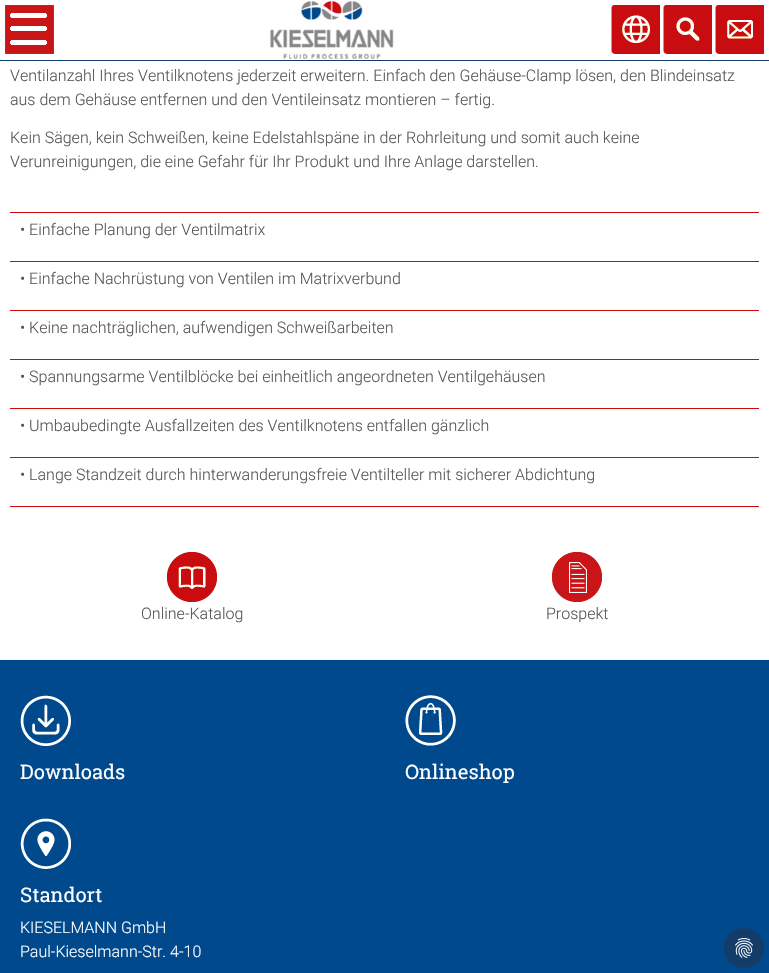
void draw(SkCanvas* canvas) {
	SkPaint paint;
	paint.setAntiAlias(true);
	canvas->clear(0xffffffff);
	paint.setColor(0xff133d68);
	canvas->drawRect(SkRect::MakeXYWH(0, 60, 769, 1), paint);
	canvas->drawImageRect(SkImages::DeferredFromEncodedData(SkData::MakeFromFileName("img1.png")), SkRect::MakeXYWH(5, 5, 49, 49), SkSamplingOptions());
	canvas->drawImageRect(SkImages::DeferredFromEncodedData(SkData::MakeFromFileName("img2.png")), SkRect::MakeXYWH(270, 1, 124, 58), SkSamplingOptions());
	canvas->drawImageRect(SkImages::DeferredFromEncodedData(SkData::MakeFromFileName("img3.png")), SkRect::MakeXYWH(611, 5, 49, 49), SkSamplingOptions());
	canvas->drawImageRect(SkImages::DeferredFromEncodedData(SkData::MakeFromFileName("img4.png")), SkRect::MakeXYWH(663, 5, 49, 49), SkSamplingOptions());
	canvas->drawImageRect(SkImages::DeferredFromEncodedData(SkData::MakeFromFileName("img5.png")), SkRect::MakeXYWH(715, 5, 49, 49), SkSamplingOptions());
	SkFont f1(fontMgr->matchFamilyStyle("Roboto", SkFontStyle(300, SkFontStyle::kNormal_Width, SkFontStyle::kUpright_Slant)), 16);
	f1.setSubpixel(true);
	paint.setColor(0xff575757);
	canvas->drawString("Ventilanzahl Ihres Ventilknotens jederzeit erweitern. Einfach den Gehäuse-Clamp lösen, den Blindeinsatz", 10, 81, f1, paint);
	canvas->drawString("aus dem Gehäuse entfernen und den Ventileinsatz montieren – fertig.", 10, 105, f1, paint);
	canvas->drawString("Kein Sägen, kein Schweißen, keine Edelstahlspäne in der Rohrleitung und somit auch keine", 10, 143, f1, paint);
	canvas->drawString("Verunreinigungen, die eine Gefahr für Ihr Produkt und Ihre Anlage darstellen.", 10, 167, f1, paint);
	paint.setColor(0xffc90c0f);
	canvas->drawRect(SkRect::MakeXYWH(10, 212, 749, 1), paint);
	canvas->drawRect(SkRect::MakeXYWH(10, 261, 749, 1), paint);
	paint.setColor(0xff575757);
	canvas->drawString("• Einfache Planung der Ventilmatrix", 20, 235, f1, paint);
	paint.setColor(0xffc90c0f);
	canvas->drawRect(SkRect::MakeXYWH(10, 310, 749, 1), paint);
	paint.setColor(0xff575757);
	canvas->drawString("• Einfache Nachrüstung von Ventilen im Matrixverbund", 20, 284, f1, paint);
	paint.setColor(0xffc90c0f);
	canvas->drawRect(SkRect::MakeXYWH(10, 359, 749, 1), paint);
	paint.setColor(0xff575757);
	canvas->drawString("• Keine nachträglichen, aufwendigen Schweißarbeiten", 20, 333, f1, paint);
	paint.setColor(0xffc90c0f);
	canvas->drawRect(SkRect::MakeXYWH(10, 408, 749, 1), paint);
	paint.setColor(0xff575757);
	canvas->drawString("• Spannungsarme Ventilblöcke bei einheitlich angeordneten Ventilgehäusen", 20, 382, f1, paint);
	paint.setColor(0xffc90c0f);
	canvas->drawRect(SkRect::MakeXYWH(10, 457, 749, 1), paint);
	paint.setColor(0xff575757);
	canvas->drawString("• Umbaubedingte Ausfallzeiten des Ventilknotens entfallen gänzlich", 20, 431, f1, paint);
	paint.setColor(0xffc90c0f);
	canvas->drawRect(SkRect::MakeXYWH(10, 506, 749, 1), paint);
	paint.setColor(0xff575757);
	canvas->drawString("• Lange Standzeit durch hinterwanderungsfreie Ventilteller mit sicherer Abdichtung", 20, 480, f1, paint);
	canvas->drawImageRect(SkImages::DeferredFromEncodedData(SkData::MakeFromFileName("img6.png")), SkRect::MakeXYWH(167, 552, 50, 50), SkSamplingOptions());
	canvas->drawString("Online-Katalog", 141, 619, f1, paint);
	canvas->drawImageRect(SkImages::DeferredFromEncodedData(SkData::MakeFromFileName("img7.png")), SkRect::MakeXYWH(552, 552, 50, 50), SkSamplingOptions());
	canvas->drawString("Prospekt", 546, 619, f1, paint);
	paint.setColor(0xff00498d);
	canvas->drawRect(SkRect::MakeXYWH(0, 660, 769, 313), paint);
	canvas->drawImageRect(SkImages::DeferredFromEncodedData(SkData::MakeFromFileName("img8.png")), SkRect::MakeXYWH(20, 695, 51, 51), SkSamplingOptions());
	SkFont f2(fontMgr->matchFamilyStyle("Roboto Slab", SkFontStyle::Normal()), 20);
	f2.setSubpixel(true);
	paint.setColor(0xffffffff);
	canvas->drawString("Downloads", 20, 779, f2, paint);
	canvas->drawImageRect(SkImages::DeferredFromEncodedData(SkData::MakeFromFileName("img9.png")), SkRect::MakeXYWH(405, 695, 51, 51), SkSamplingOptions());
	canvas->drawString("Onlineshop", 405, 779, f2, paint);
	canvas->drawImageRect(SkImages::DeferredFromEncodedData(SkData::MakeFromFileName("img10.png")), SkRect::MakeXYWH(20, 818, 51, 51), SkSamplingOptions());
	canvas->drawString("Standort", 20, 902, f2, paint);
	canvas->drawString("KIESELMANN GmbH", 20, 933, f1, paint);
	canvas->drawString("Paul-Kieselmann-Str. 4-10", 20, 957, f1, paint);
	paint.setColor(0xff133d68);
	canvas->drawCircle(744, 948, 20, paint);
	canvas->drawImageRect(SkImages::DeferredFromEncodedData(SkData::MakeFromFileName("img11.png")), SkRect::MakeXYWH(735, 938, 18, 20), SkSamplingOptions());
}
